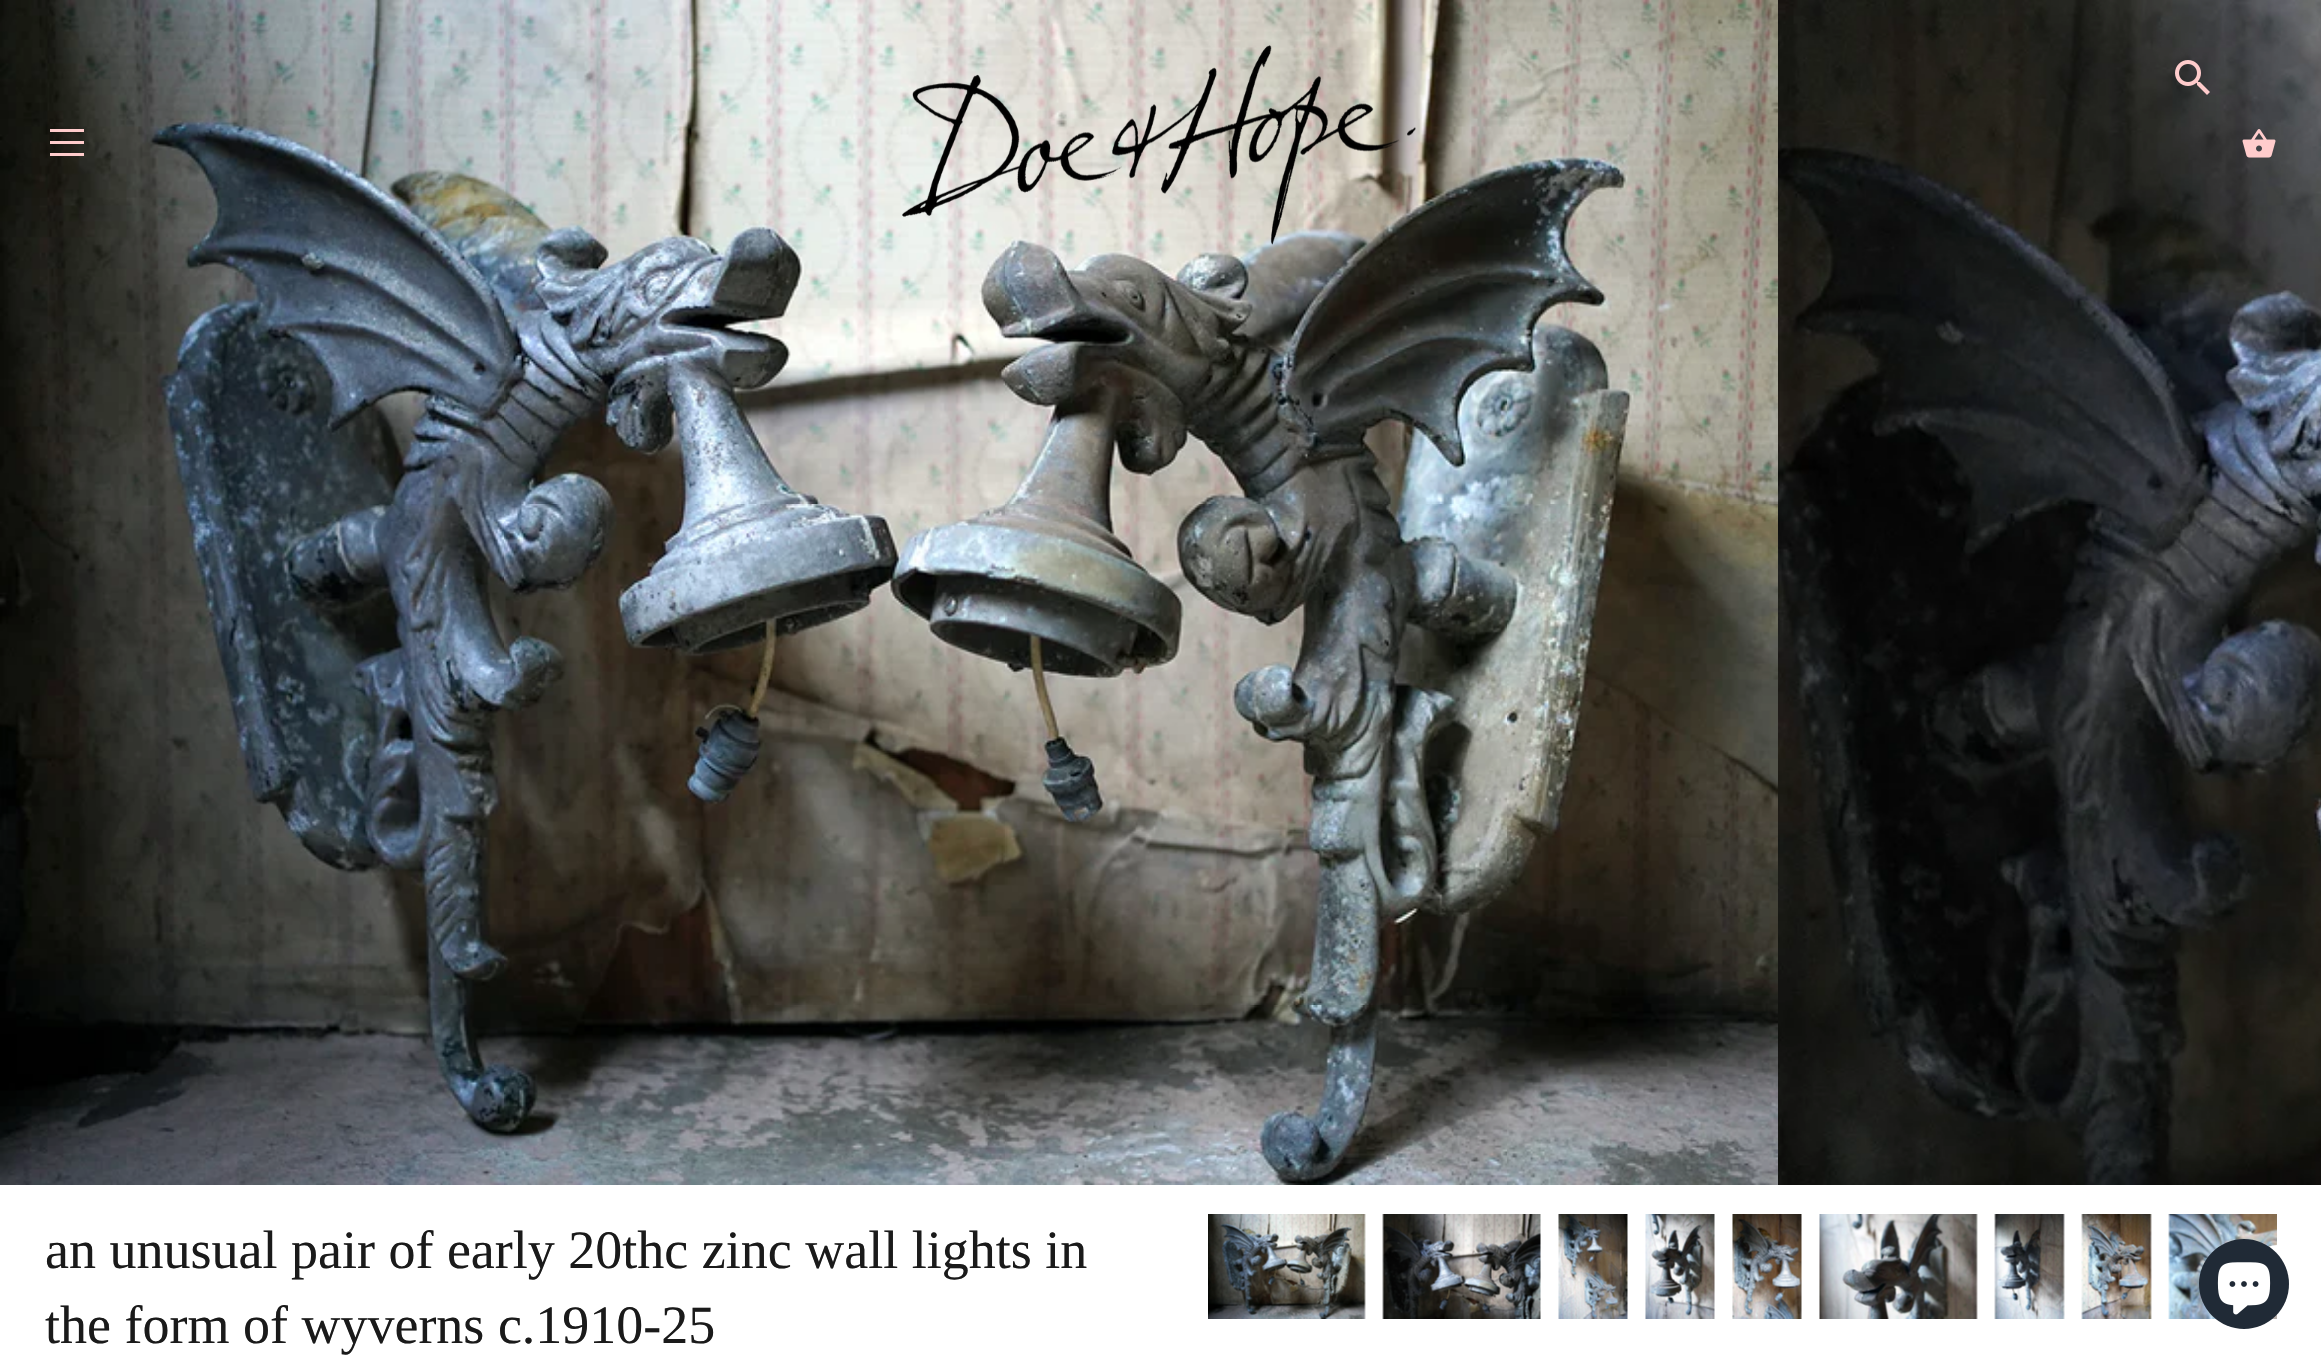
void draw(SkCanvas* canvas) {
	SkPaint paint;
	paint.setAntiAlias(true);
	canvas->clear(0xffffffff);
	canvas->drawImageRect(SkImages::DeferredFromEncodedData(SkData::MakeFromFileName("img4.png")), SkRect::MakeXYWH(0, 0, 1778, 1185), SkSamplingOptions());
	canvas->drawImageRect(SkImages::DeferredFromEncodedData(SkData::MakeFromFileName("img1.png")), SkRect::MakeXYWH(902, 45, 514, 200), SkSamplingOptions());
	canvas->drawImageRect(SkImages::DeferredFromEncodedData(SkData::MakeFromFileName("img5.png")), SkRect::MakeXYWH(1778, 0, 543, 1185), SkSamplingOptions());
	canvas->drawImageRect(SkImages::DeferredFromEncodedData(SkData::MakeFromFileName("img2.png")), SkRect::MakeXYWH(2175, 60, 35, 35), SkSamplingOptions());
	paint.setColor(0xffffcccc);
	canvas->drawRect(SkRect::MakeXYWH(50, 129, 34, 3), paint);
	canvas->drawRect(SkRect::MakeXYWH(50, 141, 34, 3), paint);
	canvas->drawRect(SkRect::MakeXYWH(50, 153, 34, 3), paint);
	canvas->drawImageRect(SkImages::DeferredFromEncodedData(SkData::MakeFromFileName("img3.png")), SkRect::MakeXYWH(2242, 129, 34, 29), SkSamplingOptions());
	SkFont f1(fontMgr->matchFamilyStyle("Liberation Serif", SkFontStyle::Normal()), 54);
	f1.setSubpixel(true);
	paint.setColor(0xff1a1a1a);
	canvas->drawString("an unusual pair of early 20thc zinc wall lights in", 45, 1268, f1, paint);
	canvas->drawString("the form of wyverns c.1910-25", 45, 1343, f1, paint);
	canvas->drawImageRect(SkImages::DeferredFromEncodedData(SkData::MakeFromFileName("img6.png")), SkRect::MakeXYWH(1208, 1214, 158, 105), SkSamplingOptions());
	canvas->drawImageRect(SkImages::DeferredFromEncodedData(SkData::MakeFromFileName("img7.png")), SkRect::MakeXYWH(1382, 1214, 159, 105), SkSamplingOptions());
	canvas->drawImageRect(SkImages::DeferredFromEncodedData(SkData::MakeFromFileName("img8.png")), SkRect::MakeXYWH(1558, 1214, 70, 105), SkSamplingOptions());
	canvas->drawImageRect(SkImages::DeferredFromEncodedData(SkData::MakeFromFileName("img9.png")), SkRect::MakeXYWH(1645, 1214, 70, 105), SkSamplingOptions());
	canvas->drawImageRect(SkImages::DeferredFromEncodedData(SkData::MakeFromFileName("img10.png")), SkRect::MakeXYWH(1732, 1214, 70, 105), SkSamplingOptions());
	canvas->drawImageRect(SkImages::DeferredFromEncodedData(SkData::MakeFromFileName("img11.png")), SkRect::MakeXYWH(1819, 1214, 159, 105), SkSamplingOptions());
	canvas->drawImageRect(SkImages::DeferredFromEncodedData(SkData::MakeFromFileName("img12.png")), SkRect::MakeXYWH(1994, 1214, 71, 105), SkSamplingOptions());
	canvas->drawImageRect(SkImages::DeferredFromEncodedData(SkData::MakeFromFileName("img13.png")), SkRect::MakeXYWH(2081, 1214, 71, 105), SkSamplingOptions());
	canvas->drawImageRect(SkImages::DeferredFromEncodedData(SkData::MakeFromFileName("img14.png")), SkRect::MakeXYWH(2168, 1214, 109, 105), SkSamplingOptions());
	paint.setColor(0xffffffff);
	canvas->drawCircle(2277.5, 1270.5, 25.5, paint);
	paint.setColor(0xff202a36);
	canvas->drawCircle(2244, 1284, 45, paint);
	canvas->drawImageRect(SkImages::DeferredFromEncodedData(SkData::MakeFromFileName("img15.png")), SkRect::MakeXYWH(2217, 1262, 54, 53), SkSamplingOptions());
}
